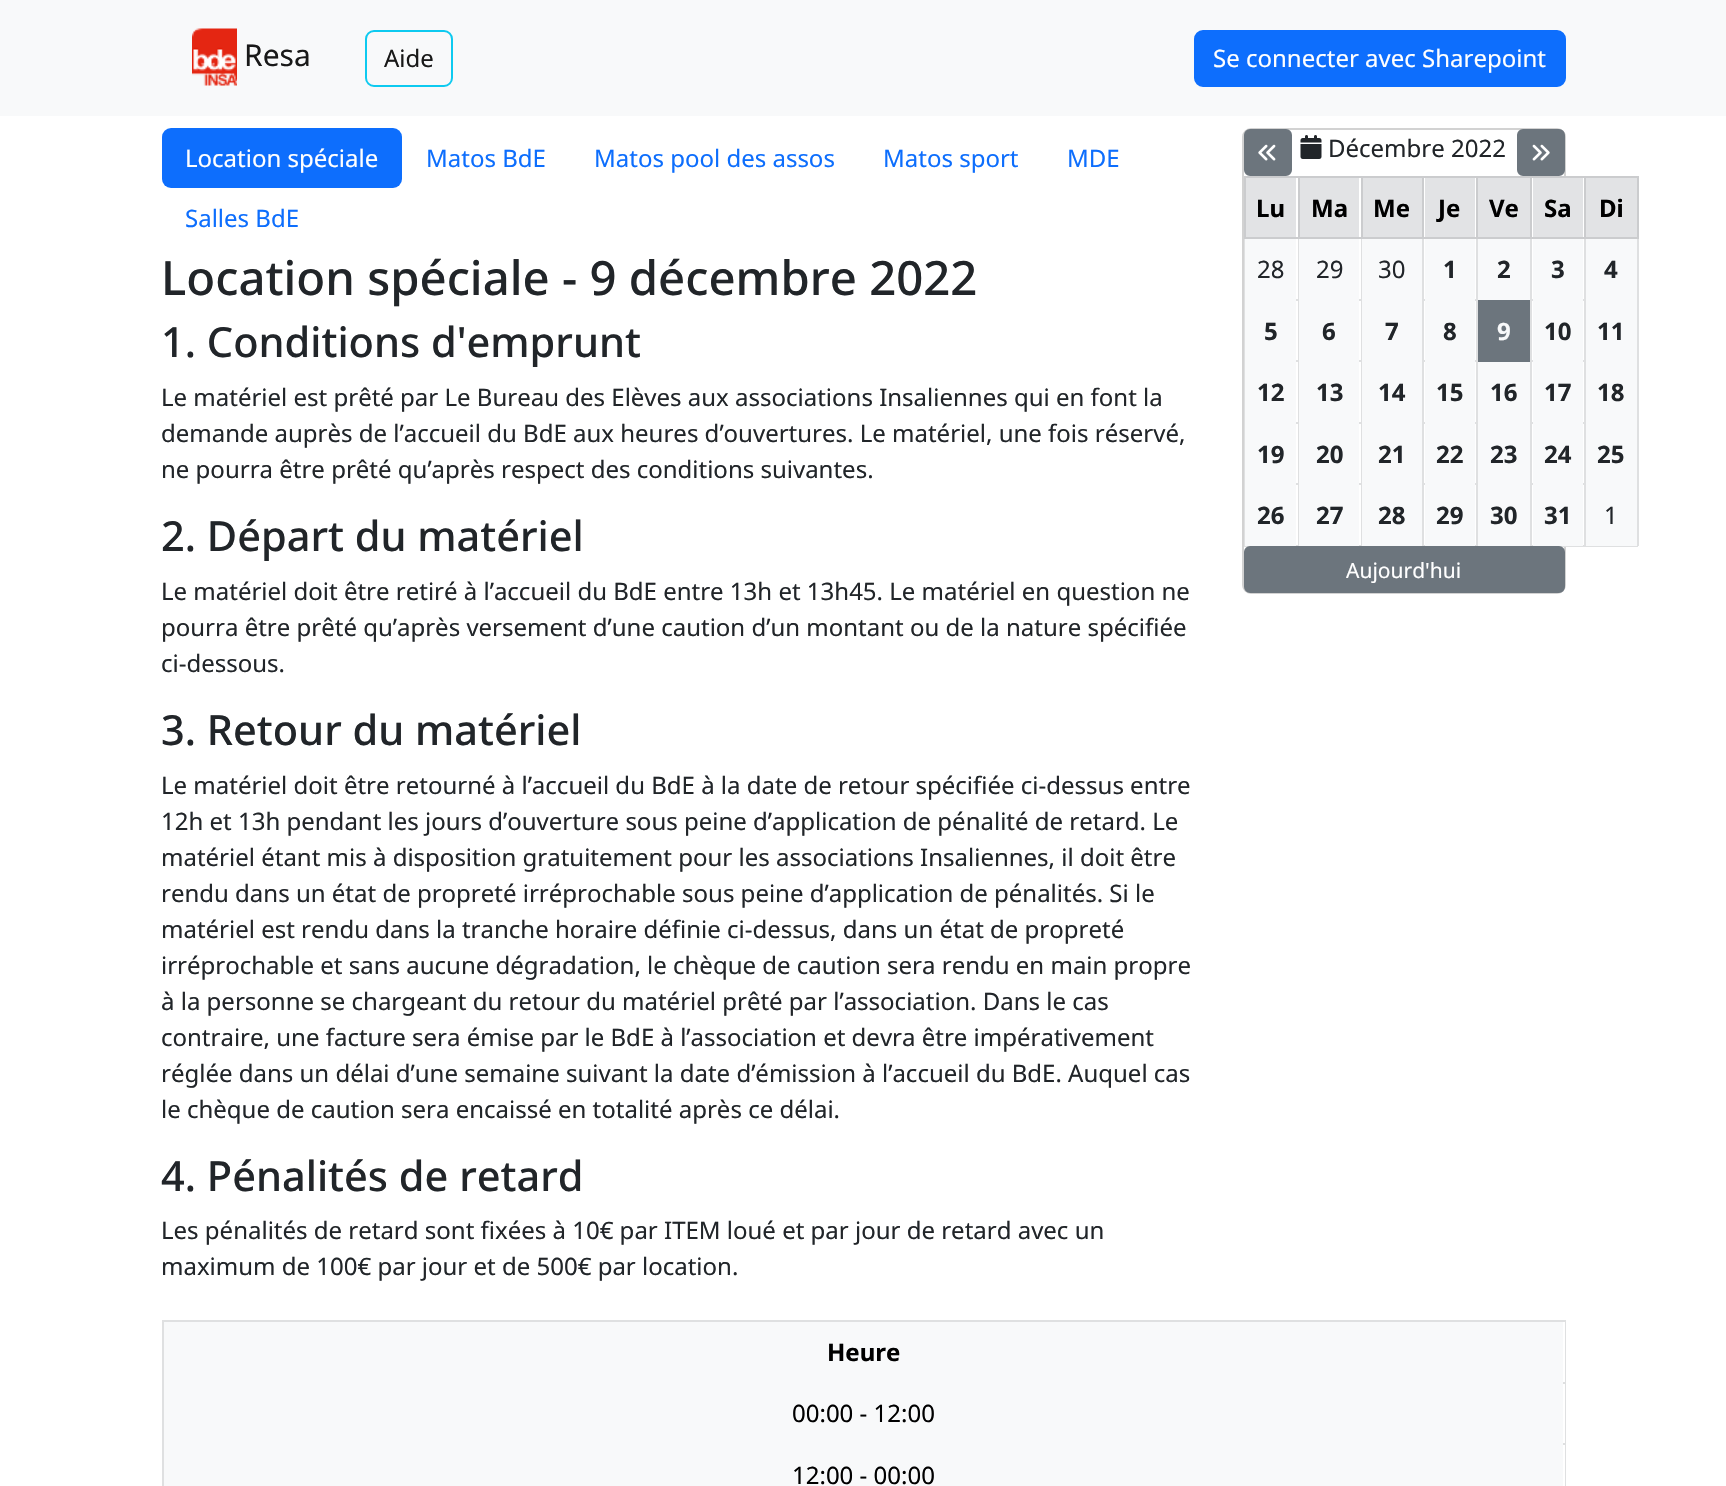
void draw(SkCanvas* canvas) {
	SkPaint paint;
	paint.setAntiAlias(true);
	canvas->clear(0xffffffff);
	paint.setColor(0xfff8f9fa);
	canvas->drawRect(SkRect::MakeXYWH(0, 0, 1726, 116), paint);
	canvas->drawImageRect(SkImages::DeferredFromEncodedData(SkData::MakeFromFileName("img1.png")), SkRect::MakeXYWH(192, 28, 45, 58), SkSamplingOptions());
	SkFont f1(fontMgr->matchFamilyStyle("Noto Sans", SkFontStyle::Normal()), 30);
	f1.setSubpixel(true);
	paint.setColor(0xff191919);
	canvas->drawString("Resa", 244, 66, f1, paint);
	paint.setStroke(true);
	paint.setStrokeWidth(2);
	paint.setColor(0xff0dcaf0);
	canvas->drawRoundRect(SkRect::MakeXYWH(366, 31, 86, 55), 8, 8, paint);
	SkFont f2(fontMgr->matchFamilyStyle("Noto Sans", SkFontStyle::Normal()), 24);
	f2.setSubpixel(true);
	paint.setStroke(false);
	paint.setColor(0xff191919);
	canvas->drawString("Aide", 384, 67, f2, paint);
	paint.setColor(0xff0d6efd);
	canvas->drawRoundRect(SkRect::MakeXYWH(1195, 31, 370, 55), 8, 8, paint);
	paint.setStroke(true);
	canvas->drawRoundRect(SkRect::MakeXYWH(1195, 31, 370, 55), 8, 8, paint);
	paint.setStroke(false);
	paint.setColor(0xffffffff);
	canvas->drawString("Se connecter avec Sharepoint", 1213, 67, f2, paint);
	paint.setColor(0xff0d6efd);
	canvas->drawRoundRect(SkRect::MakeXYWH(162, 128, 240, 60), 9, 9, paint);
	paint.setColor(0xffffffff);
	canvas->drawString("Location spéciale", 185, 167, f2, paint);
	paint.setColor(0xff0d6efd);
	canvas->drawString("Matos BdE", 426, 167, f2, paint);
	canvas->drawString("Matos pool des assos", 594, 167, f2, paint);
	canvas->drawString("Matos sport", 883, 167, f2, paint);
	canvas->drawString("MDE", 1067, 167, f2, paint);
	canvas->drawString("Salles BdE", 185, 227, f2, paint);
	SkFont f3(fontMgr->matchFamilyStyle("Noto Sans", SkFontStyle(500, SkFontStyle::kNormal_Width, SkFontStyle::kUpright_Slant)), 47.3);
	f3.setSubpixel(true);
	paint.setColor(0xff212529);
	canvas->drawString("Location spéciale - 9 décembre 2022", 161, 295, f3, paint);
	SkFont f4(fontMgr->matchFamilyStyle("Noto Sans", SkFontStyle(500, SkFontStyle::kNormal_Width, SkFontStyle::kUpright_Slant)), 41.5);
	f4.setSubpixel(true);
	canvas->drawString("1. Conditions d'emprunt", 161, 357, f4, paint);
	canvas->drawString("Le matériel est prêté par Le Bureau des Elèves aux associations Insaliennes qui en font la", 161, 406, f2, paint);
	canvas->drawString("demande auprès de l’accueil du BdE aux heures d’ouvertures. Le matériel, une fois réservé,", 161, 442, f2, paint);
	canvas->drawString("ne pourra être prêté qu’après respect des conditions suivantes.", 161, 478, f2, paint);
	canvas->drawString("2. Départ du matériel", 161, 551, f4, paint);
	canvas->drawString("Le matériel doit être retiré à l’accueil du BdE entre 13h et 13h45. Le matériel en question ne", 161, 600, f2, paint);
	canvas->drawString("pourra être prêté qu’après versement d’une caution d’un montant ou de la nature spécifiée", 161, 636, f2, paint);
	canvas->drawString("ci-dessous.", 161, 672, f2, paint);
	canvas->drawString("3. Retour du matériel", 161, 745, f4, paint);
	canvas->drawString("Le matériel doit être retourné à l’accueil du BdE à la date de retour spécifiée ci-dessus entre", 161, 794, f2, paint);
	canvas->drawString("12h et 13h pendant les jours d’ouverture sous peine d’application de pénalité de retard. Le", 161, 830, f2, paint);
	canvas->drawString("matériel étant mis à disposition gratuitement pour les associations Insaliennes, il doit être", 161, 866, f2, paint);
	canvas->drawString("rendu dans un état de propreté irréprochable sous peine d’application de pénalités. Si le", 161, 902, f2, paint);
	canvas->drawString("matériel est rendu dans la tranche horaire définie ci-dessus, dans un état de propreté", 161, 938, f2, paint);
	canvas->drawString("irréprochable et sans aucune dégradation, le chèque de caution sera rendu en main propre", 161, 974, f2, paint);
	canvas->drawString("à la personne se chargeant du retour du matériel prêté par l’association. Dans le cas", 161, 1010, f2, paint);
	canvas->drawString("contraire, une facture sera émise par le BdE à l’association et devra être impérativement", 161, 1046, f2, paint);
	canvas->drawString("réglée dans un délai d’une semaine suivant la date d’émission à l’accueil du BdE. Auquel cas", 161, 1082, f2, paint);
	canvas->drawString("le chèque de caution sera encaissé en totalité après ce délai.", 161, 1118, f2, paint);
	canvas->drawString("4. Pénalités de retard", 161, 1191, f4, paint);
	canvas->drawString("Les pénalités de retard sont fixées à 10€ par ITEM loué et par jour de retard avec un", 161, 1239, f2, paint);
	canvas->drawString("maximum de 100€ par jour et de 500€ par location.", 161, 1275, f2, paint);
	paint.setStroke(true);
	paint.setColor(0xffd2d2d2);
	canvas->drawRoundRect(SkRect::MakeXYWH(1243, 129, 322, 464), 8, 8, paint);
	paint.setStroke(false);
	paint.setColor(0xff6c757d);
	canvas->drawRoundRect(SkRect::MakeXYWH(1245, 130, 46, 45), 5, 5, paint);
	paint.setStroke(true);
	canvas->drawRoundRect(SkRect::MakeXYWH(1245, 130, 46, 45), 5, 5, paint);
	canvas->drawImageRect(SkImages::DeferredFromEncodedData(SkData::MakeFromFileName("img2.png")), SkRect::MakeXYWH(1258, 144, 18, 17), SkSamplingOptions());
	canvas->drawImageRect(SkImages::DeferredFromEncodedData(SkData::MakeFromFileName("img3.png")), SkRect::MakeXYWH(1300, 135, 22, 24), SkSamplingOptions());
	paint.setStroke(false);
	paint.setColor(0xff212529);
	canvas->drawString("Décembre 2022", 1328, 157, f2, paint);
	paint.setColor(0xff6c757d);
	canvas->drawRoundRect(SkRect::MakeXYWH(1518, 130, 46, 45), 5, 5, paint);
	paint.setStroke(true);
	canvas->drawRoundRect(SkRect::MakeXYWH(1518, 130, 46, 45), 5, 5, paint);
	canvas->drawImageRect(SkImages::DeferredFromEncodedData(SkData::MakeFromFileName("img4.png")), SkRect::MakeXYWH(1532, 144, 18, 17), SkSamplingOptions());
	paint.setStroke(false);
	paint.setColor(0xffcbccce);
	canvas->drawRect(SkRect::MakeXYWH(1244, 176, 394, 2), paint);
	canvas->drawRect(SkRect::MakeXYWH(1244, 237, 394, 2), paint);
	paint.setColor(0xffe2e3e5);
	canvas->drawRect(SkRect::MakeXYWH(1246, 178, 50, 59), paint);
	paint.setColor(0xffdfe0e1);
	canvas->drawRect(SkRect::MakeXYWH(1244, 545, 394, 2), paint);
	canvas->drawRect(SkRect::MakeXYWH(1244, 237, 1, 309), paint);
	paint.setColor(0xffcbccce);
	canvas->drawRect(SkRect::MakeXYWH(1244, 176, 2, 63), paint);
	SkFont f5(fontMgr->matchFamilyStyle("Noto Sans", SkFontStyle::Bold()), 24);
	f5.setSubpixel(true);
	paint.setColor(0xff000000);
	canvas->drawString("Lu", 1256, 217, f5, paint);
	paint.setColor(0xffe2e3e5);
	canvas->drawRect(SkRect::MakeXYWH(1300, 178, 59, 59), paint);
	paint.setColor(0xffdfe0e1);
	canvas->drawRect(SkRect::MakeXYWH(1296, 299, 288, 2), paint);
	canvas->drawRect(SkRect::MakeXYWH(1296, 360, 288, 2), paint);
	canvas->drawRect(SkRect::MakeXYWH(1296, 422, 288, 2), paint);
	canvas->drawRect(SkRect::MakeXYWH(1296, 483, 288, 2), paint);
	canvas->drawRect(SkRect::MakeXYWH(1298, 237, 1, 309), paint);
	paint.setColor(0xffcbccce);
	canvas->drawRect(SkRect::MakeXYWH(1298, 176, 2, 63), paint);
	paint.setColor(0xff000000);
	canvas->drawString("Ma", 1311, 217, f5, paint);
	paint.setColor(0xffe2e3e5);
	canvas->drawRect(SkRect::MakeXYWH(1363, 178, 59, 59), paint);
	paint.setColor(0xffdfe0e1);
	canvas->drawRect(SkRect::MakeXYWH(1361, 237, 1, 309), paint);
	paint.setColor(0xffcbccce);
	canvas->drawRect(SkRect::MakeXYWH(1361, 176, 2, 63), paint);
	paint.setColor(0xff000000);
	canvas->drawString("Me", 1373, 217, f5, paint);
	paint.setColor(0xffe2e3e5);
	canvas->drawRect(SkRect::MakeXYWH(1425, 178, 50, 59), paint);
	paint.setColor(0xffdfe0e1);
	canvas->drawRect(SkRect::MakeXYWH(1422, 237, 2, 309), paint);
	paint.setColor(0xffcbccce);
	canvas->drawRect(SkRect::MakeXYWH(1422, 176, 2, 63), paint);
	paint.setColor(0xff000000);
	canvas->drawString("Je", 1438, 217, f5, paint);
	paint.setColor(0xffe2e3e5);
	canvas->drawRect(SkRect::MakeXYWH(1478, 178, 52, 59), paint);
	paint.setColor(0xffdfe0e1);
	canvas->drawRect(SkRect::MakeXYWH(1476, 237, 2, 309), paint);
	paint.setColor(0xffcbccce);
	canvas->drawRect(SkRect::MakeXYWH(1476, 176, 2, 63), paint);
	paint.setColor(0xff000000);
	canvas->drawString("Ve", 1489, 217, f5, paint);
	paint.setColor(0xffe2e3e5);
	canvas->drawRect(SkRect::MakeXYWH(1533, 178, 50, 59), paint);
	paint.setColor(0xffdfe0e1);
	canvas->drawRect(SkRect::MakeXYWH(1530, 237, 2, 309), paint);
	paint.setColor(0xffcbccce);
	canvas->drawRect(SkRect::MakeXYWH(1530, 176, 2, 63), paint);
	paint.setColor(0xff000000);
	canvas->drawString("Sa", 1544, 217, f5, paint);
	paint.setColor(0xffe2e3e5);
	canvas->drawRect(SkRect::MakeXYWH(1586, 178, 51, 59), paint);
	paint.setColor(0xffdfe0e1);
	canvas->drawRect(SkRect::MakeXYWH(1637, 237, 2, 309), paint);
	paint.setColor(0xffcbccce);
	canvas->drawRect(SkRect::MakeXYWH(1637, 176, 2, 63), paint);
	paint.setColor(0xffdfe0e1);
	canvas->drawRect(SkRect::MakeXYWH(1584, 237, 2, 309), paint);
	paint.setColor(0xffcbccce);
	canvas->drawRect(SkRect::MakeXYWH(1584, 176, 2, 63), paint);
	paint.setColor(0xff000000);
	canvas->drawString("Di", 1599, 217, f5, paint);
	paint.setColor(0xfff8f9fa);
	canvas->drawRect(SkRect::MakeXYWH(1245, 239, 51, 307), paint);
	paint.setColor(0xff212529);
	canvas->drawString("28", 1257, 278, f2, paint);
	paint.setColor(0xfff8f9fa);
	canvas->drawRect(SkRect::MakeXYWH(1299, 239, 60, 307), paint);
	paint.setColor(0xff212529);
	canvas->drawString("29", 1316, 278, f2, paint);
	paint.setColor(0xfff8f9fa);
	canvas->drawRect(SkRect::MakeXYWH(1362, 239, 60, 307), paint);
	paint.setColor(0xff212529);
	canvas->drawString("30", 1378, 278, f2, paint);
	paint.setColor(0xfff8f9fa);
	canvas->drawRect(SkRect::MakeXYWH(1425, 239, 50, 307), paint);
	paint.setColor(0xff212529);
	canvas->drawString("1", 1443, 278, f5, paint);
	paint.setColor(0xfff8f9fa);
	canvas->drawRect(SkRect::MakeXYWH(1478, 239, 52, 61), paint);
	paint.setColor(0xff212529);
	canvas->drawString("2", 1497, 278, f5, paint);
	paint.setColor(0xfff8f9fa);
	canvas->drawRect(SkRect::MakeXYWH(1533, 239, 50, 307), paint);
	paint.setColor(0xff212529);
	canvas->drawString("3", 1551, 278, f5, paint);
	paint.setColor(0xfff8f9fa);
	canvas->drawRect(SkRect::MakeXYWH(1586, 239, 51, 307), paint);
	paint.setColor(0xff212529);
	canvas->drawString("4", 1604, 278, f5, paint);
	canvas->drawString("5", 1264, 340, f5, paint);
	canvas->drawString("6", 1322, 340, f5, paint);
	canvas->drawString("7", 1385, 340, f5, paint);
	canvas->drawString("8", 1443, 340, f5, paint);
	paint.setColor(0xff6c757d);
	canvas->drawRect(SkRect::MakeXYWH(1478, 300, 52, 62), paint);
	paint.setColor(0xfff8f9fa);
	canvas->drawString("9", 1497, 340, f5, paint);
	paint.setColor(0xff212529);
	canvas->drawString("10", 1544, 340, f5, paint);
	canvas->drawString("11", 1597, 340, f5, paint);
	canvas->drawString("12", 1257, 401, f5, paint);
	canvas->drawString("13", 1316, 401, f5, paint);
	canvas->drawString("14", 1378, 401, f5, paint);
	canvas->drawString("15", 1436, 401, f5, paint);
	paint.setColor(0xfff8f9fa);
	canvas->drawRect(SkRect::MakeXYWH(1478, 362, 52, 184), paint);
	paint.setColor(0xff212529);
	canvas->drawString("16", 1490, 401, f5, paint);
	canvas->drawString("17", 1544, 401, f5, paint);
	canvas->drawString("18", 1597, 401, f5, paint);
	canvas->drawString("19", 1257, 463, f5, paint);
	canvas->drawString("20", 1316, 463, f5, paint);
	canvas->drawString("21", 1378, 463, f5, paint);
	canvas->drawString("22", 1436, 463, f5, paint);
	canvas->drawString("23", 1490, 463, f5, paint);
	canvas->drawString("24", 1544, 463, f5, paint);
	canvas->drawString("25", 1597, 463, f5, paint);
	canvas->drawString("26", 1257, 524, f5, paint);
	canvas->drawString("27", 1316, 524, f5, paint);
	canvas->drawString("28", 1378, 524, f5, paint);
	canvas->drawString("29", 1436, 524, f5, paint);
	canvas->drawString("30", 1490, 524, f5, paint);
	canvas->drawString("31", 1544, 524, f5, paint);
	canvas->drawString("1", 1604, 524, f2, paint);
	paint.setColor(0xff6c757d);
	canvas->drawRoundRect(SkRect::MakeXYWH(1245, 547, 319, 45), 5, 5, paint);
	paint.setStroke(true);
	canvas->drawRoundRect(SkRect::MakeXYWH(1245, 547, 319, 45), 5, 5, paint);
	SkFont f6(fontMgr->matchFamilyStyle("Noto Sans", SkFontStyle::Normal()), 21);
	f6.setSubpixel(true);
	paint.setStroke(false);
	paint.setColor(0xffffffff);
	canvas->drawString("Aujourd'hui", 1346, 578, f6, paint);
	paint.setColor(0xffdfe0e1);
	canvas->drawRect(SkRect::MakeXYWH(162, 1320, 1404, 2), paint);
	paint.setColor(0xfff8f9fa);
	canvas->drawRect(SkRect::MakeXYWH(164, 1322, 1399, 164), paint);
	paint.setColor(0xff000000);
	canvas->drawString("Heure", 827, 1361, f5, paint);
	paint.setColor(0xffdfe0e1);
	canvas->drawRect(SkRect::MakeXYWH(1563, 1382, 3, 2), paint);
	paint.setColor(0xff000000);
	canvas->drawString("00:00 - 12:00", 792, 1422, f2, paint);
	paint.setColor(0xffdfe0e1);
	canvas->drawRect(SkRect::MakeXYWH(1563, 1443, 3, 2), paint);
	canvas->drawRect(SkRect::MakeXYWH(1565, 1320, 1, 166), paint);
	canvas->drawRect(SkRect::MakeXYWH(162, 1320, 2, 166), paint);
	paint.setColor(0xff000000);
	canvas->drawString("12:00 - 00:00", 792, 1484, f2, paint);
}
